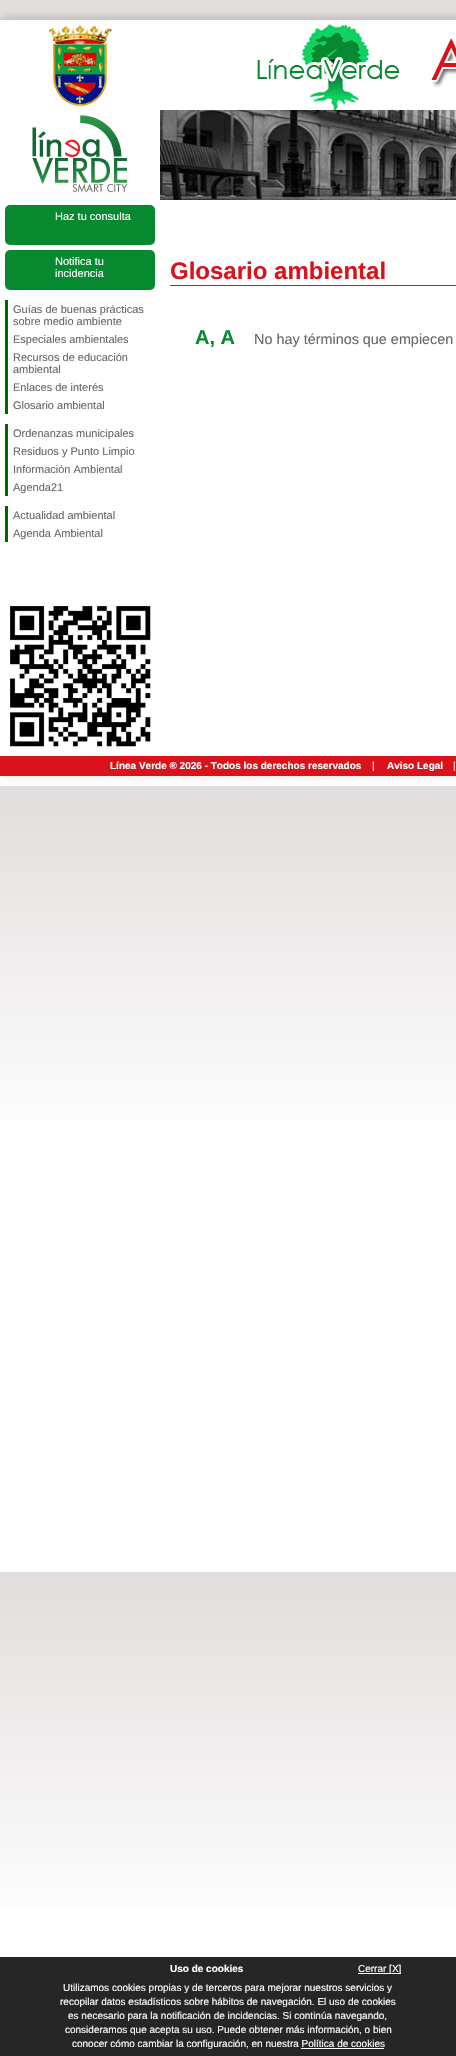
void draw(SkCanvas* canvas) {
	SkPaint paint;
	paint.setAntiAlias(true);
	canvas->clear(0xffffffff);
	{
		const SkColor colors[] = {0xffe2dddd, 0xffffffff};
		const float stops[] = {0, 0.46};
		const SkPoint ends[] = {{228, 0}, {228, 786}};
		paint.setShader(SkGradientShader::MakeLinear(ends, colors, stops, 2, SkTileMode::kClamp));
		paint.setAlpha(255);
	}
	canvas->drawRect(SkRect::MakeXYWH(0, 0, 456, 335), paint);
	{
		const SkColor colors[] = {0xffe2dddd, 0xffffffff};
		const float stops[] = {0, 0.46};
		const SkPoint ends[] = {{228, 786}, {228, 1572}};
		paint.setShader(SkGradientShader::MakeLinear(ends, colors, stops, 2, SkTileMode::kClamp));
		paint.setAlpha(255);
	}
	canvas->drawRect(SkRect::MakeXYWH(0, 786, 456, 335), paint);
	{
		const SkColor colors[] = {0xffe2dddd, 0xffffffff};
		const float stops[] = {0, 0.46};
		const SkPoint ends[] = {{228, 1572}, {228, 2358}};
		paint.setShader(SkGradientShader::MakeLinear(ends, colors, stops, 2, SkTileMode::kClamp));
		paint.setAlpha(255);
	}
	canvas->drawRect(SkRect::MakeXYWH(0, 1572, 456, 335), paint);
	paint.setShader(nullptr);
	paint.setColor(0x33000000);
	paint.setMaskFilter(SkMaskFilter::MakeBlur(kNormal_SkBlurStyle, 5));
	canvas->drawRoundRect(SkRect::MakeXYWH(0, 18, 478, 756), 7, 7, paint);
	paint.setMaskFilter(nullptr);
	paint.setColor(0xffffffff);
	canvas->drawRect(SkRect::MakeXYWH(0, 110, 456, 646), paint);
	canvas->drawImageRect(SkImages::DeferredFromEncodedData(SkData::MakeFromFileName("img1.png")), SkRect::MakeXYWH(0, 20, 456, 90), SkSamplingOptions());
	canvas->drawImageRect(SkImages::DeferredFromEncodedData(SkData::MakeFromFileName("img2.png")), SkRect::MakeXYWH(32, 115, 96, 77), SkSamplingOptions());
	canvas->drawImageRect(SkImages::DeferredFromEncodedData(SkData::MakeFromFileName("img3.png")), SkRect::MakeXYWH(160, 110, 296, 90), SkSamplingOptions());
	paint.setColor(0xff078930);
	canvas->drawRoundRect(SkRect::MakeXYWH(5, 205, 150, 40), 5, 5, paint);
	SkFont f1(fontMgr->matchFamilyStyle("Liberation Sans", SkFontStyle::Normal()), 11);
	f1.setSubpixel(true);
	paint.setColor(0xffffffff);
	canvas->drawString("Haz tu consulta", 55, 220, f1, paint);
	paint.setColor(0xff078930);
	canvas->drawRoundRect(SkRect::MakeXYWH(5, 250, 150, 40), 5, 5, paint);
	paint.setColor(0xffffffff);
	canvas->drawString("Notifica tu", 55, 265, f1, paint);
	canvas->drawString("incidencia", 55, 277, f1, paint);
	paint.setColor(0xff006600);
	canvas->drawRect(SkRect::MakeXYWH(5, 300, 3, 114), paint);
	paint.setColor(0xff666666);
	canvas->drawString("Guías de buenas prácticas", 13, 313, f1, paint);
	canvas->drawString("sobre medio ambiente", 13, 325, f1, paint);
	canvas->drawString("Especiales ambientales", 13, 343, f1, paint);
	canvas->drawString("Recursos de educación", 13, 361, f1, paint);
	canvas->drawString("ambiental", 13, 373, f1, paint);
	canvas->drawString("Enlaces de interés", 13, 391, f1, paint);
	canvas->drawString("Glosario ambiental", 13, 409, f1, paint);
	paint.setColor(0xff006600);
	canvas->drawRect(SkRect::MakeXYWH(5, 424, 3, 72), paint);
	paint.setColor(0xff666666);
	canvas->drawString("Ordenanzas municipales", 13, 437, f1, paint);
	canvas->drawString("Residuos y Punto Limpio", 13, 455, f1, paint);
	canvas->drawString("Información Ambiental", 13, 473, f1, paint);
	canvas->drawString("Agenda21", 13, 491, f1, paint);
	paint.setColor(0xff006600);
	canvas->drawRect(SkRect::MakeXYWH(5, 506, 3, 36), paint);
	paint.setColor(0xff666666);
	canvas->drawString("Actualidad ambiental", 13, 519, f1, paint);
	canvas->drawString("Agenda Ambiental", 13, 537, f1, paint);
	canvas->drawImageRect(SkImages::DeferredFromEncodedData(SkData::MakeFromFileName("img4.png")), SkRect::MakeXYWH(10, 606, 141, 141), SkSamplingOptions());
	paint.setColor(0xffda121a);
	canvas->drawRect(SkRect::MakeXYWH(170, 285, 286, 1), paint);
	SkFont f2(fontMgr->matchFamilyStyle("Liberation Sans", SkFontStyle::Bold()), 24);
	f2.setSubpixel(true);
	canvas->drawString("Glosario ambiental", 170, 279, f2, paint);
	SkFont f3(fontMgr->matchFamilyStyle("Liberation Sans", SkFontStyle::Bold()), 20);
	f3.setSubpixel(true);
	paint.setColor(0xff078930);
	canvas->drawString("A, A", 195, 344, f3, paint);
	SkFont f4(fontMgr->matchFamilyStyle("Liberation Sans", SkFontStyle::Normal()), 14.4);
	f4.setSubpixel(true);
	paint.setColor(0xff666666);
	canvas->drawString("No hay términos que empiecen", 254, 344, f4, paint);
	paint.setColor(0xffda121a);
	canvas->drawRect(SkRect::MakeXYWH(0, 756, 456, 20), paint);
	SkFont f5(fontMgr->matchFamilyStyle("Liberation Sans", SkFontStyle::Bold()), 10);
	f5.setSubpixel(true);
	paint.setColor(0xffffffff);
	canvas->drawString("Línea Verde ® 2026 - Todos los derechos reservados", 110, 769, f5, paint);
	SkFont f6(fontMgr->matchFamilyStyle("Liberation Sans", SkFontStyle::Normal()), 10);
	f6.setSubpixel(true);
	canvas->drawString("|", 372, 769, f6, paint);
	canvas->drawString("Aviso Legal", 387, 769, f5, paint);
	canvas->drawString("|", 453, 769, f6, paint);
	paint.setColor(0xff262626);
	canvas->drawRect(SkRect::MakeXYWH(0, 1957, 456, 99), paint);
	paint.setColor(0xffffffff);
	canvas->drawString("Uso de cookies", 170, 1972, f5, paint);
	canvas->drawRect(SkRect::MakeXYWH(358, 1973, 43, 1), paint);
	canvas->drawString("Cerrar [X]", 358, 1972, f6, paint);
	canvas->drawString("Utilizamos cookies propias y de terceros para mejorar nuestros servicios y", 63, 1991, f6, paint);
	canvas->drawString("recopilar datos estadísticos sobre hábitos de navegación. El uso de cookies", 60, 2005, f6, paint);
	canvas->drawString("es necesario para la notificación de incidencias. Si continúa navegando,", 68, 2019, f6, paint);
	canvas->drawString("consideramos que acepta su uso. Puede obtener más información, o bien", 65, 2033, f6, paint);
	canvas->drawString("conocer cómo cambiar la configuración, en nuestra Política de cookies", 72, 2047, f6, paint);
	canvas->drawRect(SkRect::MakeXYWH(301, 2048, 83, 1), paint);
}
